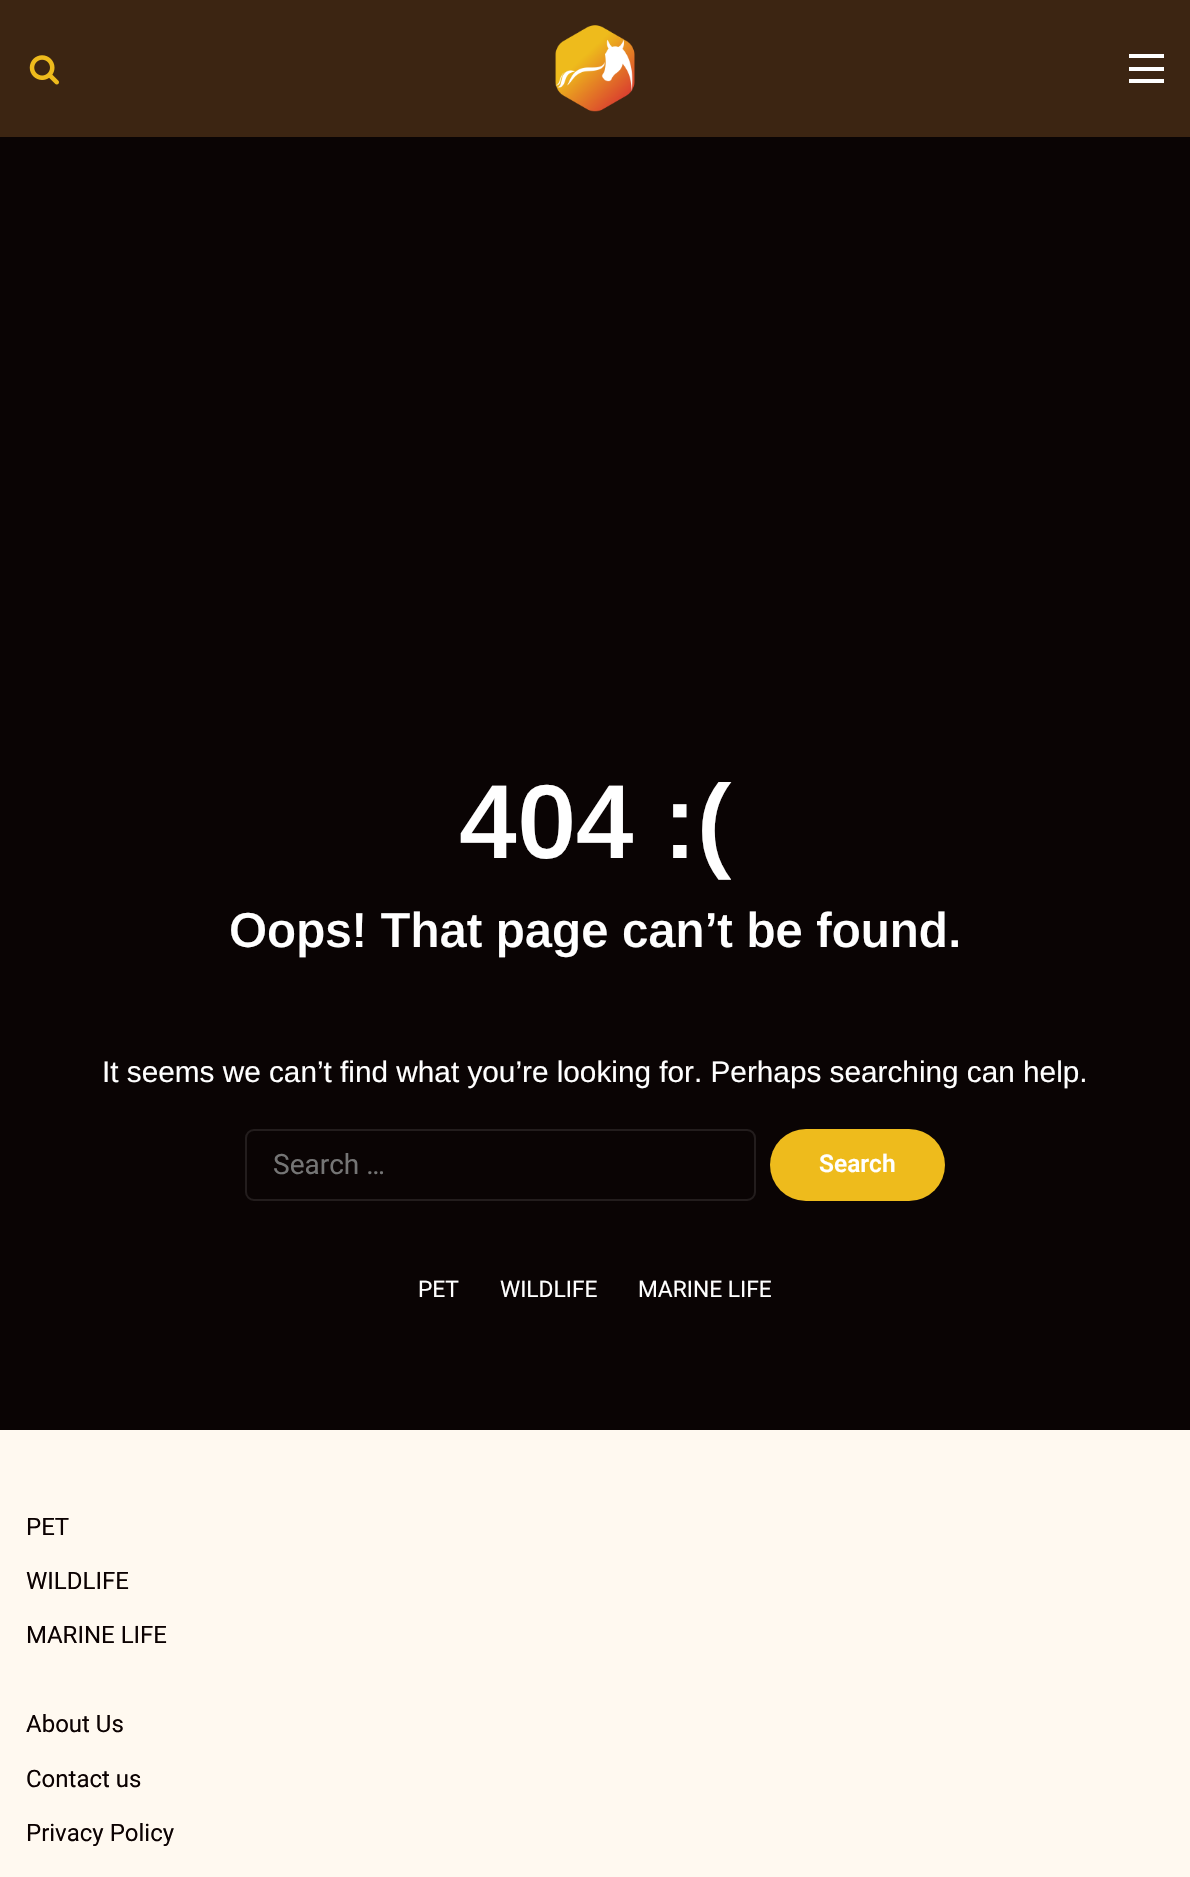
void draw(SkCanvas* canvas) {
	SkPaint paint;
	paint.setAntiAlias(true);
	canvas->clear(0xff0a0404);
	paint.setColor(0xff3c2512);
	canvas->drawRect(SkRect::MakeXYWH(0, 0, 1190, 137), paint);
	canvas->drawImageRect(SkImages::DeferredFromEncodedData(SkData::MakeFromFileName("img1.png")), SkRect::MakeXYWH(29, 55, 30, 30), SkSamplingOptions());
	canvas->drawImageRect(SkImages::DeferredFromEncodedData(SkData::MakeFromFileName("img2.png")), SkRect::MakeXYWH(555, 25, 80, 87), SkSamplingOptions());
	paint.setColor(0xffffffff);
	canvas->drawRect(SkRect::MakeXYWH(1129, 67, 35, 4), paint);
	canvas->drawRect(SkRect::MakeXYWH(1129, 54, 35, 4), paint);
	canvas->drawRect(SkRect::MakeXYWH(1129, 79, 35, 4), paint);
	SkFont f1(fontMgr->matchFamilyStyle("Arimo", SkFontStyle(600, SkFontStyle::kNormal_Width, SkFontStyle::kUpright_Slant)), 105);
	f1.setSubpixel(true);
	canvas->drawString("404 :(", 459, 858, f1, paint);
	SkFont f2(fontMgr->matchFamilyStyle("Arimo", SkFontStyle(600, SkFontStyle::kNormal_Width, SkFontStyle::kUpright_Slant)), 49);
	f2.setSubpixel(true);
	canvas->drawString("Oops! That page can’t be found.", 229, 947, f2, paint);
	SkFont f3(fontMgr->matchFamilyStyle("Arimo", SkFontStyle::Normal()), 29.75);
	f3.setSubpixel(true);
	canvas->drawString("It seems we can’t find what you’re looking for. Perhaps searching can help.", 102, 1082, f3, paint);
	paint.setStroke(true);
	paint.setStrokeWidth(2);
	paint.setColor(0xff231d1d);
	canvas->drawRoundRect(SkRect::MakeXYWH(246, 1130, 509, 70), 8, 8, paint);
	SkFont f4(fontMgr->matchFamilyStyle("Roboto", SkFontStyle::Normal()), 28);
	f4.setSubpixel(true);
	paint.setStroke(false);
	paint.setColor(0xff757575);
	canvas->drawString("Search …", 273, 1174, f4, paint);
	paint.setColor(0xffeebb1c);
	canvas->drawRoundRect(SkRect::MakeXYWH(770, 1129, 175, 72), 36, 36, paint);
	SkFont f5(fontMgr->matchFamilyStyle("Roboto", SkFontStyle(600, SkFontStyle::kNormal_Width, SkFontStyle::kUpright_Slant)), 24.5);
	f5.setSubpixel(true);
	paint.setColor(0xffffffff);
	canvas->drawString("Search", 819, 1172, f5, paint);
	SkFont f6(fontMgr->matchFamilyStyle("Roboto", SkFontStyle::Normal()), 22.75);
	f6.setSubpixel(true);
	canvas->drawString("PET", 418, 1297, f6, paint);
	canvas->drawString("WILDLIFE", 500, 1297, f6, paint);
	canvas->drawString("MARINE LIFE", 638, 1297, f6, paint);
	paint.setColor(0xfffff9f0);
	canvas->drawRect(SkRect::MakeXYWH(0, 1430, 1190, 447), paint);
	SkFont f7(fontMgr->matchFamilyStyle("Roboto", SkFontStyle::Normal()), 24);
	f7.setSubpixel(true);
	paint.setColor(0xff0c0202);
	canvas->drawString("PET", 26, 1535, f7, paint);
	canvas->drawString("WILDLIFE", 26, 1589, f7, paint);
	canvas->drawString("MARINE LIFE", 26, 1643, f7, paint);
	canvas->drawString("About Us", 26, 1732, f7, paint);
	canvas->drawString("Contact us", 26, 1787, f7, paint);
	canvas->drawString("Privacy Policy", 26, 1841, f7, paint);
}
